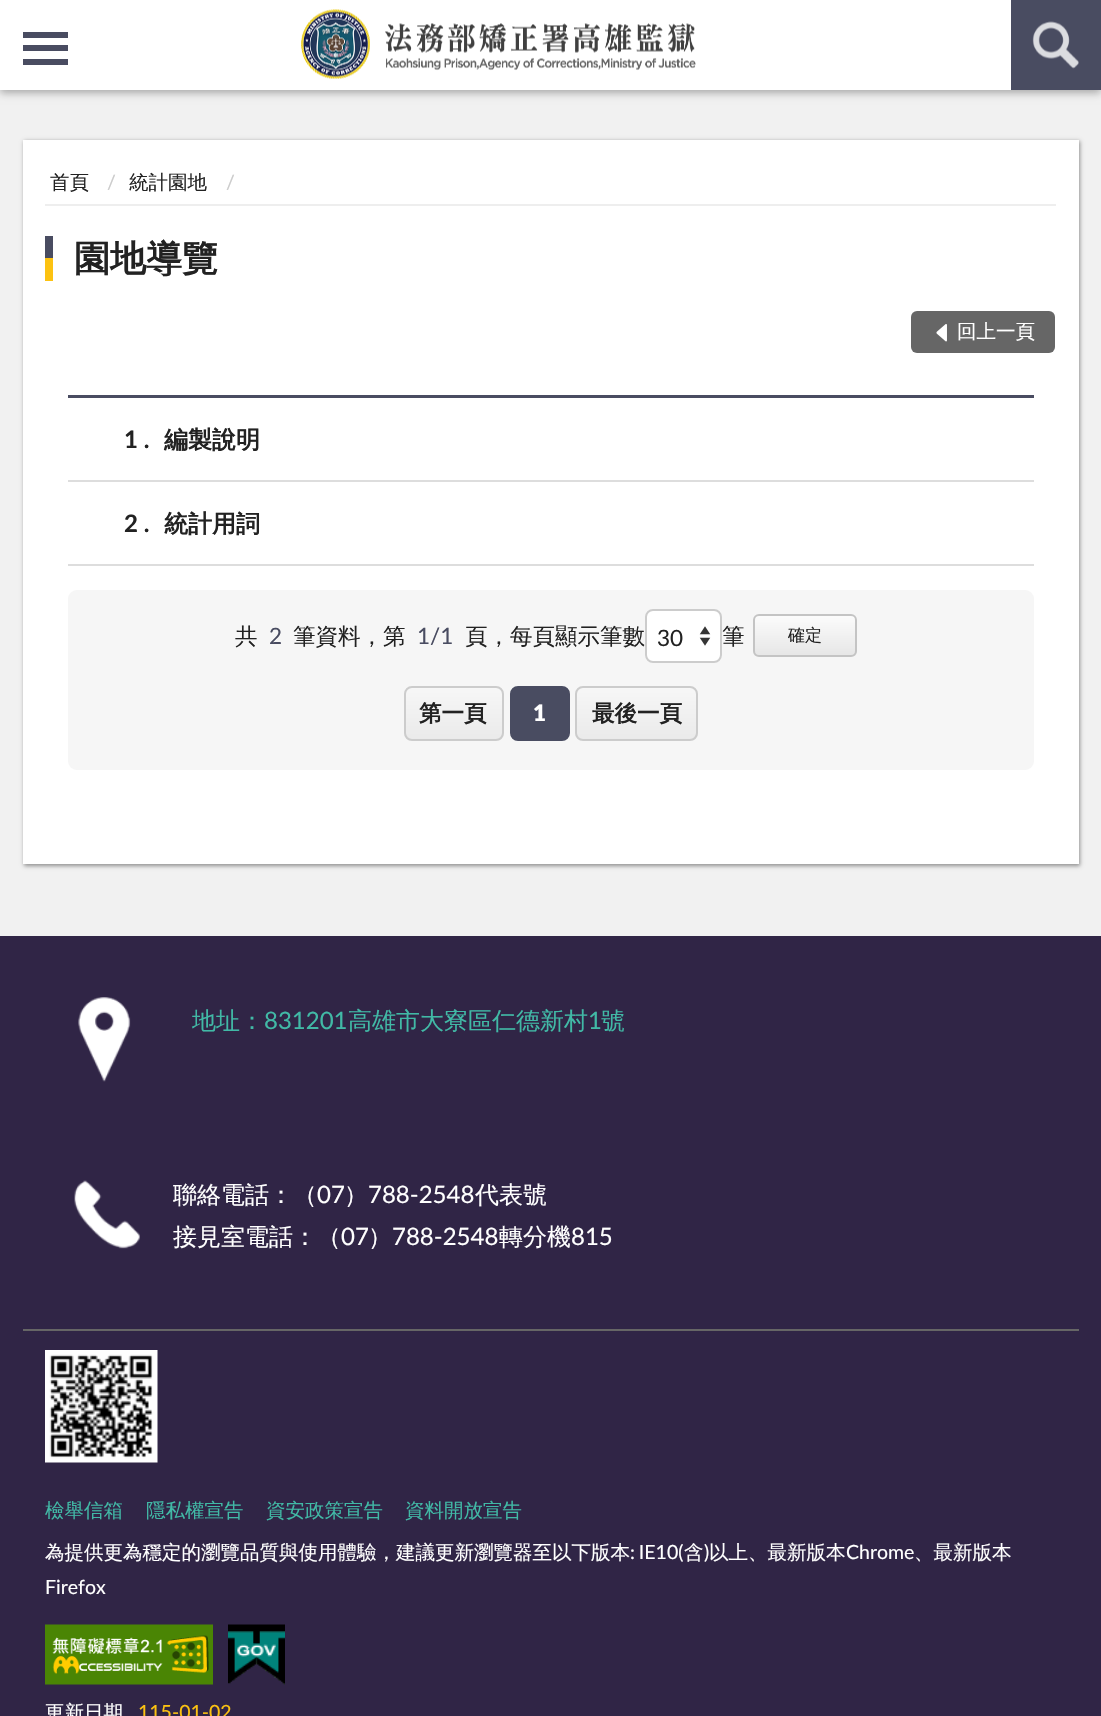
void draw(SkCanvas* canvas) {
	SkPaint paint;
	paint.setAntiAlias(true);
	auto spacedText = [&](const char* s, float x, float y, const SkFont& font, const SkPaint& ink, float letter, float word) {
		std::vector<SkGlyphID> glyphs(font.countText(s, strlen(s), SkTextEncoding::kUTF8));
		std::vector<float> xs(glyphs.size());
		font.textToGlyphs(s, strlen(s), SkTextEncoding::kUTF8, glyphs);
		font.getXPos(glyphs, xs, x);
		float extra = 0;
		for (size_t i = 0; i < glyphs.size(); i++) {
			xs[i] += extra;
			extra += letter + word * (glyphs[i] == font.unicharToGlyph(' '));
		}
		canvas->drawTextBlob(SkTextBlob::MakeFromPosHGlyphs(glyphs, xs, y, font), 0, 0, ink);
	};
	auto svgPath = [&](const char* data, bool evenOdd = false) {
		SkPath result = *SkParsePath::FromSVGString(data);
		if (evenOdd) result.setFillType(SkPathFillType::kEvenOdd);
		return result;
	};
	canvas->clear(0xff302546);
	paint.setColor(0xfff1f1f1);
	canvas->drawRect(SkRect::MakeXYWH(0, 90, 1101, 846), paint);
	paint.setColor(0x4d000000);
	paint.setMaskFilter(SkMaskFilter::MakeBlur(kNormal_SkBlurStyle, 4));
	canvas->drawRect(SkRect::MakeXYWH(0, 3, 1101, 90), paint);
	paint.setMaskFilter(nullptr);
	paint.setColor(0xffffffff);
	canvas->drawRect(SkRect::MakeXYWH(0, 0, 1011, 90), paint);
	paint.setColor(0xff494c61);
	canvas->drawRect(SkRect::MakeXYWH(23, 32, 45, 6), paint);
	canvas->drawRect(SkRect::MakeXYWH(23, 45, 45, 6), paint);
	canvas->drawRect(SkRect::MakeXYWH(23, 59, 45, 6), paint);
	canvas->drawImageRect(SkImages::DeferredFromEncodedData(SkData::MakeFromFileName("img1.png")), SkRect::MakeXYWH(301, 9, 395, 70), SkSamplingOptions());
	canvas->drawRect(SkRect::MakeXYWH(1011, 0, 90, 90), paint);
	canvas->drawImageRect(SkImages::DeferredFromEncodedData(SkData::MakeFromFileName("img2.png")), SkRect::MakeXYWH(1032, 21, 47, 48), SkSamplingOptions());
	paint.setColor(0x66000000);
	paint.setMaskFilter(SkMaskFilter::MakeBlur(kNormal_SkBlurStyle, 2));
	canvas->drawRect(SkRect::MakeXYWH(24, 141, 1056, 725), paint);
	paint.setMaskFilter(nullptr);
	paint.setColor(0xffffffff);
	canvas->drawRect(SkRect::MakeXYWH(23, 140, 1056, 724), paint);
	paint.setColor(0xffeeeeee);
	canvas->drawRect(SkRect::MakeXYWH(45, 204, 1011, 2), paint);
	SkFont f1(fontMgr->matchFamilyStyle("WenQuanYi Zen Hei", SkFontStyle(500, SkFontStyle::kNormal_Width, SkFontStyle::kUpright_Slant)), 19.5);
	f1.setSubpixel(true);
	paint.setColor(0xff222222);
	canvas->drawString("首頁", 50, 189, f1, paint);
	SkFont f2(fontMgr->matchFamilyStyle("Lato", SkFontStyle::Normal()), 19.5);
	f2.setSubpixel(true);
	paint.setColor(0xffcccccc);
	canvas->drawString("/", 107, 189, f2, paint);
	paint.setColor(0xff222222);
	canvas->drawString("統計園地", 129, 189, f1, paint);
	paint.setColor(0xffcccccc);
	canvas->drawString("/", 226, 189, f2, paint);
	paint.setColor(0xff494c61);
	canvas->drawRect(SkRect::MakeXYWH(45, 236, 8, 22), paint);
	SkFont f3(fontMgr->matchFamilyStyle("WenQuanYi Zen Hei", SkFontStyle::Bold()), 36);
	f3.setSubpixel(true);
	paint.setColor(0xff222222);
	canvas->drawString("園地導覽", 74, 271, f3, paint);
	paint.setColor(0xfffcc211);
	canvas->drawRect(SkRect::MakeXYWH(45, 258, 8, 23), paint);
	paint.setColor(0xff666666);
	canvas->drawRoundRect(SkRect::MakeXYWH(911, 311, 144, 42), 6, 6, paint);
	canvas->drawImageRect(SkImages::DeferredFromEncodedData(SkData::MakeFromFileName("img3.png")), SkRect::MakeXYWH(936, 324, 11, 18), SkSamplingOptions());
	paint.setColor(0xffffffff);
	canvas->drawString("回上一頁", 957, 338, f1, paint);
	paint.setColor(0xff494c61);
	canvas->drawRect(SkRect::MakeXYWH(68, 395, 966, 3), paint);
	paint.setColor(0xffdddddd);
	canvas->drawRect(SkRect::MakeXYWH(68, 480, 966, 2), paint);
	SkFont f4(fontMgr->matchFamilyStyle("Lato", SkFontStyle::Bold()), 24);
	f4.setSubpixel(true);
	paint.setColor(0xff222222);
	canvas->drawString("1 .", 124, 448, f4, paint);
	SkFont f5(fontMgr->matchFamilyStyle("WenQuanYi Zen Hei", SkFontStyle::Bold()), 24);
	f5.setSubpixel(true);
	canvas->drawString("編製說明", 164, 448, f5, paint);
	paint.setColor(0xffdddddd);
	canvas->drawRect(SkRect::MakeXYWH(68, 564, 966, 2), paint);
	paint.setColor(0xff222222);
	canvas->drawString("2 .", 124, 532, f4, paint);
	canvas->drawString("統計用詞", 164, 532, f5, paint);
	paint.setColor(0xfff6f6f6);
	canvas->drawRoundRect(SkRect::MakeXYWH(68, 590, 966, 180), 9, 9, paint);
	SkFont f6(fontMgr->matchFamilyStyle("WenQuanYi Zen Hei", SkFontStyle(500, SkFontStyle::kNormal_Width, SkFontStyle::kUpright_Slant)), 22.5);
	f6.setSubpixel(true);
	paint.setColor(0xff222222);
	canvas->drawString("共", 235, 644, f6, paint);
	SkFont f7(fontMgr->matchFamilyStyle("Lato", SkFontStyle::Normal()), 22.5);
	f7.setSubpixel(true);
	paint.setColor(0xff494c61);
	canvas->drawString("2", 269, 644, f7, paint);
	paint.setColor(0xff222222);
	canvas->drawString("筆資料，第", 293, 644, f6, paint);
	paint.setColor(0xff494c61);
	canvas->drawString("1/1", 417, 644, f7, paint);
	paint.setColor(0xff222222);
	canvas->drawString("頁，每頁顯示筆數", 465, 644, f6, paint);
	paint.setColor(0xffffffff);
	canvas->drawRoundRect(SkRect::MakeXYWH(645, 609, 77, 54), 8, 8, paint);
	canvas->drawImageRect(SkImages::DeferredFromEncodedData(SkData::MakeFromFileName("img4.png")), SkRect::MakeXYWH(699, 626, 12, 20), SkSamplingOptions());
	paint.setStroke(true);
	paint.setStrokeWidth(2);
	paint.setColor(0xffcccccc);
	canvas->drawRoundRect(SkRect::MakeXYWH(646, 610, 75, 52), 7, 7, paint);
	paint.setStroke(false);
	paint.setColor(0xff222222);
	canvas->drawString("30", 657, 646, f7, paint);
	canvas->drawString("筆", 722, 644, f6, paint);
	canvas->save();
	canvas->clipPath(svgPath("M759 614H851C854.5 614 857 616.5 857 620V651C857 654.5 854.5 657 851 657H759C755.5 657 753 654.5 753 651V620C753 616.5 755.5 614 759 614Z"), true);
	{
		const SkColor colors[] = {0xfffcfcfc, 0xffe6e6e6};
		const float stops[] = {0, 1};
		const SkPoint ends[] = {{805, 615}, {805, 656}};
		paint.setShader(SkGradientShader::MakeLinear(ends, colors, stops, 2, SkTileMode::kClamp));
		paint.setAlpha(255);
	}
	canvas->drawRect(SkRect::MakeXYWH(753, 615, 104, 41), paint);
	canvas->restore();
	paint.setStroke(true);
	paint.setShader(nullptr);
	paint.setColor(0xffc4c4c4);
	canvas->drawRoundRect(SkRect::MakeXYWH(754, 615, 102, 41), 5, 5, paint);
	SkFont f8(fontMgr->matchFamilyStyle("WenQuanYi Zen Hei", SkFontStyle(500, SkFontStyle::kNormal_Width, SkFontStyle::kUpright_Slant)), 17);
	f8.setSubpixel(true);
	paint.setStroke(false);
	paint.setColor(0xff222222);
	canvas->drawString("確定", 788, 641, f8, paint);
	canvas->save();
	canvas->clipPath(svgPath("M412 686H496C500.5 686 504 689.5 504 694V733C504 737.5 500.5 741 496 741H412C407.5 741 404 737.5 404 733V694C404 689.5 407.5 686 412 686Z"), true);
	{
		const SkColor colors[] = {0xfff7f7f7, 0xffeaeaea};
		const float stops[] = {0, 1};
		const SkPoint ends[] = {{454, 687}, {454, 740}};
		paint.setShader(SkGradientShader::MakeLinear(ends, colors, stops, 2, SkTileMode::kClamp));
		paint.setAlpha(255);
	}
	canvas->drawRect(SkRect::MakeXYWH(404, 687, 100, 53), paint);
	canvas->restore();
	paint.setStroke(true);
	paint.setShader(nullptr);
	paint.setColor(0xffcccccc);
	canvas->drawRoundRect(SkRect::MakeXYWH(405, 687, 98, 53), 7, 7, paint);
	SkFont f9(fontMgr->matchFamilyStyle("WenQuanYi Zen Hei", SkFontStyle::Bold()), 22.5);
	f9.setSubpixel(true);
	paint.setStroke(false);
	paint.setColor(0xff222222);
	canvas->drawString("第一頁", 419, 721, f9, paint);
	paint.setColor(0xff494c61);
	canvas->drawRoundRect(SkRect::MakeXYWH(511, 687, 58, 53), 7, 7, paint);
	paint.setStroke(true);
	canvas->drawRoundRect(SkRect::MakeXYWH(511, 687, 58, 53), 7, 7, paint);
	SkFont f10(fontMgr->matchFamilyStyle("Lato", SkFontStyle(800, SkFontStyle::kNormal_Width, SkFontStyle::kUpright_Slant)), 22.5);
	f10.setSubpixel(true);
	paint.setStroke(false);
	paint.setColor(0xffffffff);
	canvas->drawString("1", 533, 721, f10, paint);
	canvas->save();
	canvas->clipPath(svgPath("M583 686H690C694.5 686 698 689.5 698 694V733C698 737.5 694.5 741 690 741H583C578.5 741 575 737.5 575 733V694C575 689.5 578.5 686 583 686Z"), true);
	{
		const SkColor colors[] = {0xfff7f7f7, 0xffeaeaea};
		const float stops[] = {0, 1};
		const SkPoint ends[] = {{636, 687}, {636, 740}};
		paint.setShader(SkGradientShader::MakeLinear(ends, colors, stops, 2, SkTileMode::kClamp));
		paint.setAlpha(255);
	}
	canvas->drawRect(SkRect::MakeXYWH(575, 687, 123, 53), paint);
	canvas->restore();
	paint.setStroke(true);
	paint.setShader(nullptr);
	paint.setColor(0xffcccccc);
	canvas->drawRoundRect(SkRect::MakeXYWH(576, 687, 121, 53), 7, 7, paint);
	paint.setStroke(false);
	paint.setColor(0xff222222);
	canvas->drawString("最後一頁", 592, 721, f9, paint);
	canvas->drawImageRect(SkImages::DeferredFromEncodedData(SkData::MakeFromFileName("img5.png")), SkRect::MakeXYWH(78, 997, 53, 85), SkSamplingOptions());
	SkFont f11(fontMgr->matchFamilyStyle("WenQuanYi Zen Hei", SkFontStyle(500, SkFontStyle::kNormal_Width, SkFontStyle::kUpright_Slant)), 24);
	f11.setSubpixel(true);
	paint.setColor(0xff41b9a6);
	canvas->drawString("地址：", 192, 1029, f11, paint);
	SkFont f12(fontMgr->matchFamilyStyle("Lato", SkFontStyle::Normal()), 24);
	f12.setSubpixel(true);
	canvas->drawString("831201", 264, 1029, f12, paint);
	canvas->drawString("高雄市大寮區仁德新村", 348, 1029, f11, paint);
	canvas->drawString("1", 588, 1029, f12, paint);
	canvas->drawString("號", 601, 1029, f11, paint);
	canvas->drawImageRect(SkImages::DeferredFromEncodedData(SkData::MakeFromFileName("img6.png")), SkRect::MakeXYWH(74, 1180, 66, 69), SkSamplingOptions());
	paint.setColor(0xffffffff);
	canvas->drawString("聯絡電話：（", 173, 1203, f11, paint);
	canvas->drawString("07", 317, 1203, f12, paint);
	canvas->drawString("）", 344, 1203, f11, paint);
	canvas->drawString("788-2548", 368, 1203, f12, paint);
	canvas->drawString("代表號", 475, 1203, f11, paint);
	canvas->drawString("接見室電話：（", 173, 1245, f11, paint);
	canvas->drawString("07", 341, 1245, f12, paint);
	canvas->drawString("）", 368, 1245, f11, paint);
	canvas->drawString("788-2548", 392, 1245, f12, paint);
	canvas->drawString("轉分機", 499, 1245, f11, paint);
	canvas->drawString("815", 571, 1245, f12, paint);
	paint.setColor(0xff666666);
	canvas->drawRect(SkRect::MakeXYWH(23, 1329, 1056, 2), paint);
	canvas->drawImageRect(SkImages::DeferredFromEncodedData(SkData::MakeFromFileName("img7.png")), SkRect::MakeXYWH(45, 1350, 113, 113), SkSamplingOptions());
	paint.setColor(0xff41b9a6);
	canvas->drawString("檢舉信箱", 45, 1517, f1, paint);
	canvas->drawString("隱私權宣告", 146, 1517, f1, paint);
	canvas->drawString("資安政策宣告", 266, 1517, f1, paint);
	canvas->drawString("資料開放宣告", 405, 1517, f1, paint);
	paint.setColor(0xffffffff);
	canvas->drawString("為提供更為穩定的瀏覽品質與使用體驗，建議更新瀏覽器至以下版本", 45, 1559, f1, paint);
	spacedText(": IE10(", 630, 1559, f2, paint, 0, -1);
	canvas->drawString("含", 684, 1559, f1, paint);
	canvas->drawString(")", 704, 1559, f2, paint);
	canvas->drawString("以上、最新版本", 709, 1559, f1, paint);
	canvas->drawString("Chrome", 846, 1559, f2, paint);
	canvas->drawString("、最新版本", 914, 1559, f1, paint);
	canvas->drawString("Firefox", 45, 1594, f2, paint);
	canvas->drawImageRect(SkImages::DeferredFromEncodedData(SkData::MakeFromFileName("img8.png")), SkRect::MakeXYWH(45, 1624, 168, 61), SkSamplingOptions());
	canvas->drawImageRect(SkImages::DeferredFromEncodedData(SkData::MakeFromFileName("img9.png")), SkRect::MakeXYWH(228, 1624, 57, 61), SkSamplingOptions());
	canvas->drawString("更新日期", 45, 1719, f1, paint);
	paint.setColor(0xfffcc211);
	canvas->drawString("115-01-02", 138, 1719, f2, paint);
}
